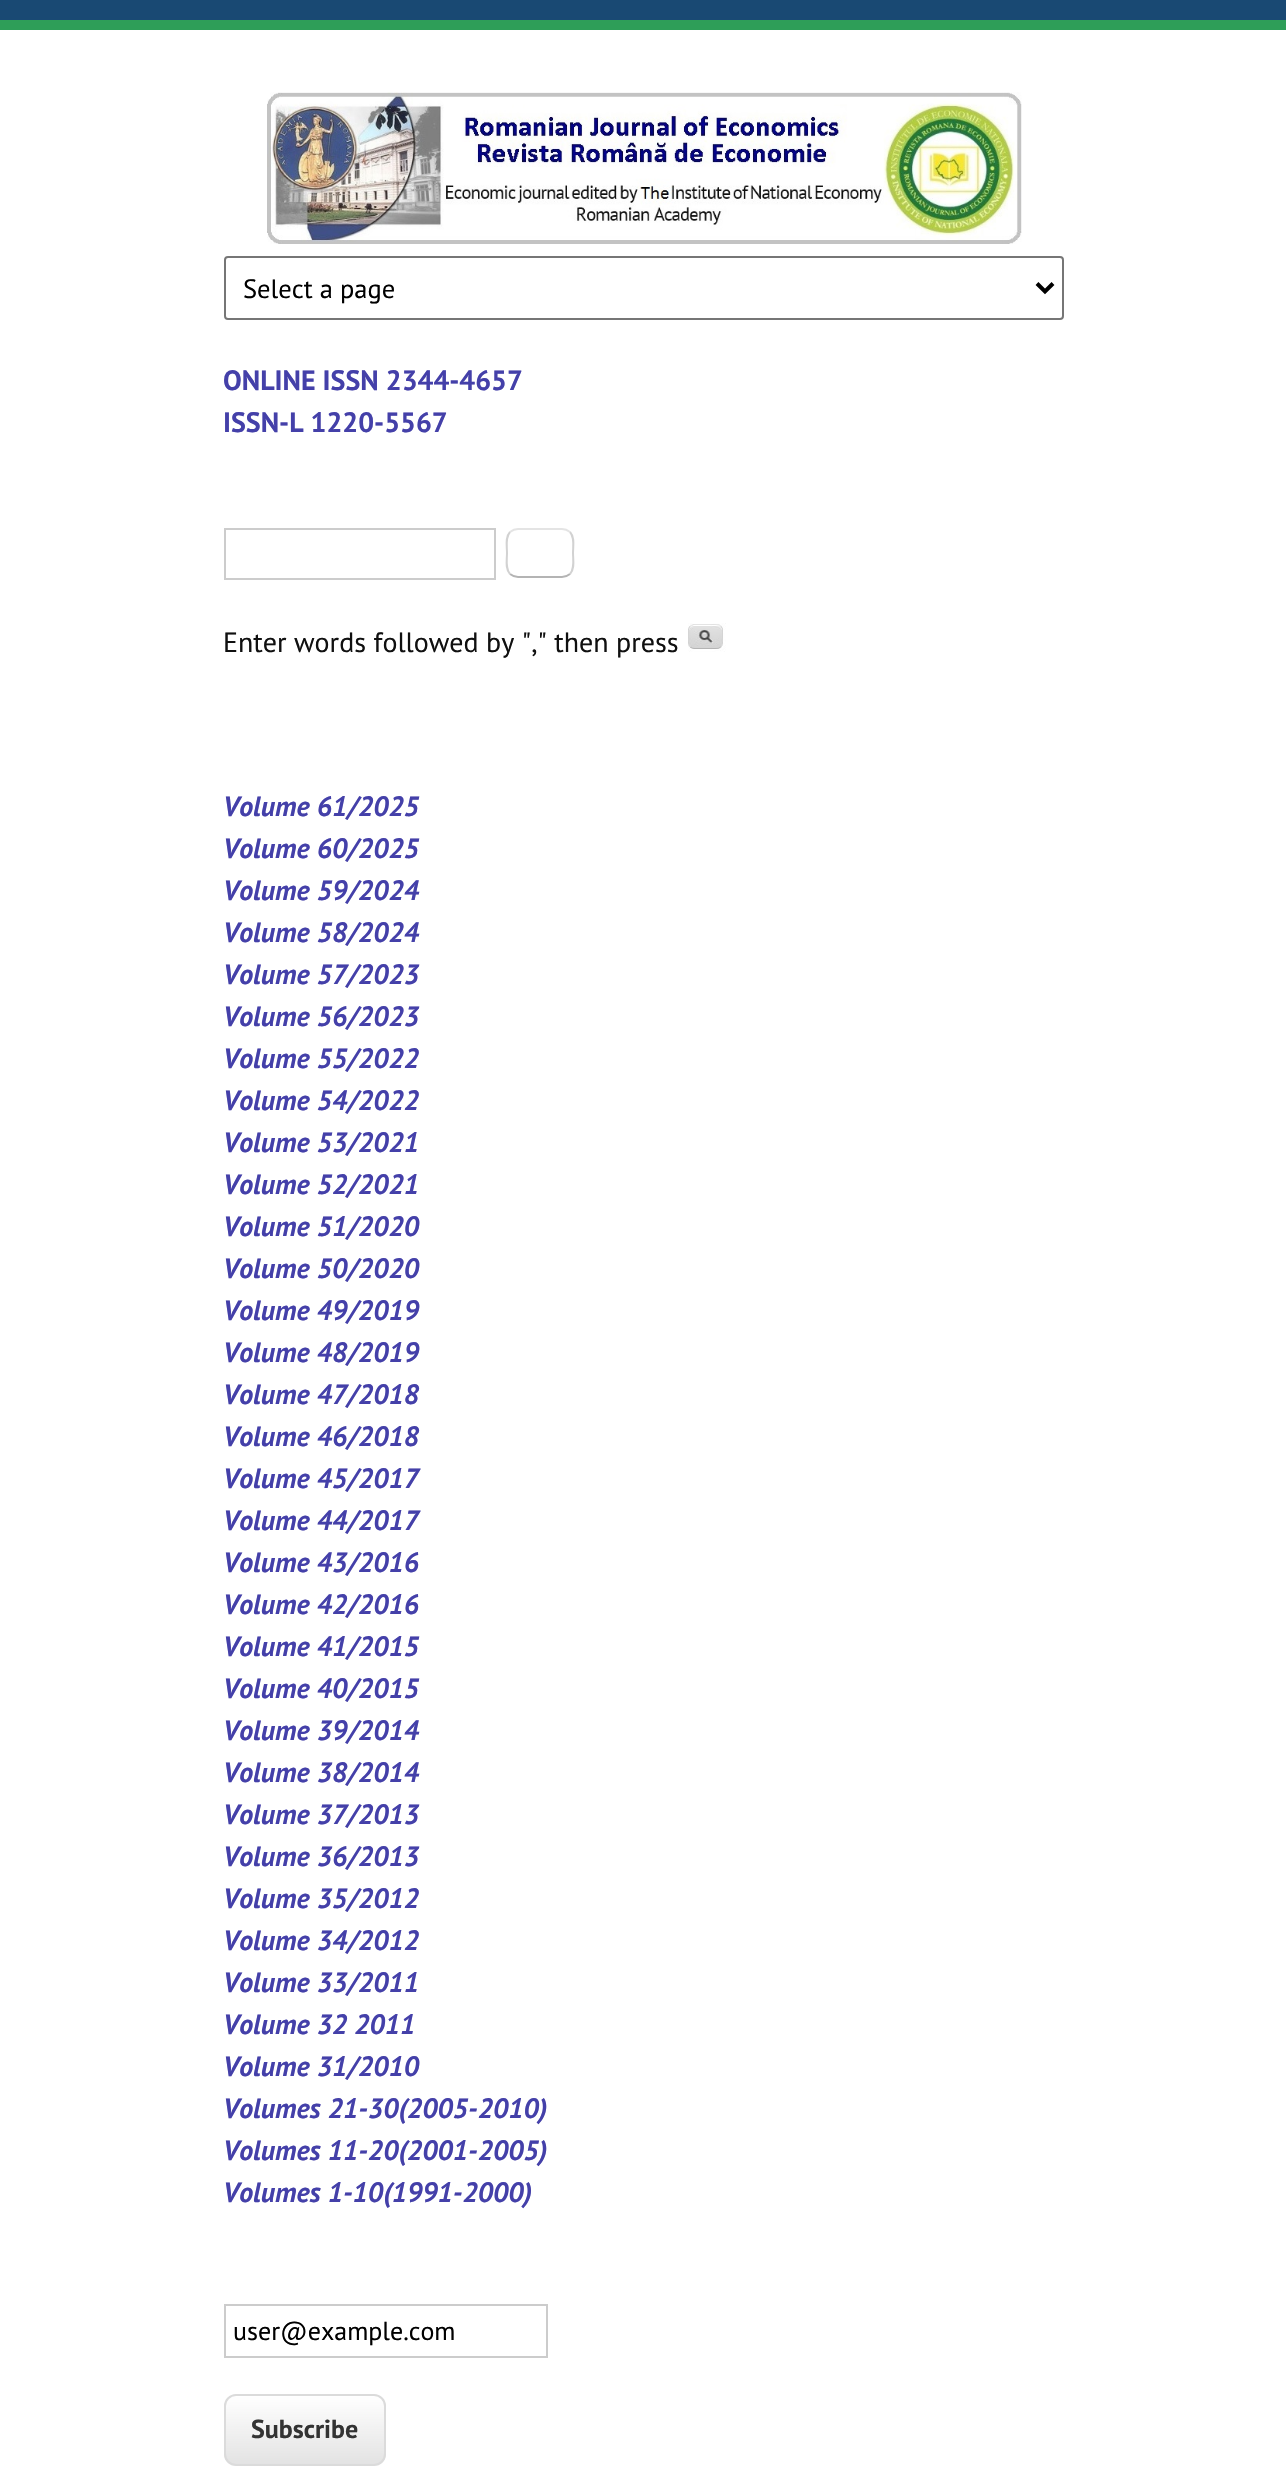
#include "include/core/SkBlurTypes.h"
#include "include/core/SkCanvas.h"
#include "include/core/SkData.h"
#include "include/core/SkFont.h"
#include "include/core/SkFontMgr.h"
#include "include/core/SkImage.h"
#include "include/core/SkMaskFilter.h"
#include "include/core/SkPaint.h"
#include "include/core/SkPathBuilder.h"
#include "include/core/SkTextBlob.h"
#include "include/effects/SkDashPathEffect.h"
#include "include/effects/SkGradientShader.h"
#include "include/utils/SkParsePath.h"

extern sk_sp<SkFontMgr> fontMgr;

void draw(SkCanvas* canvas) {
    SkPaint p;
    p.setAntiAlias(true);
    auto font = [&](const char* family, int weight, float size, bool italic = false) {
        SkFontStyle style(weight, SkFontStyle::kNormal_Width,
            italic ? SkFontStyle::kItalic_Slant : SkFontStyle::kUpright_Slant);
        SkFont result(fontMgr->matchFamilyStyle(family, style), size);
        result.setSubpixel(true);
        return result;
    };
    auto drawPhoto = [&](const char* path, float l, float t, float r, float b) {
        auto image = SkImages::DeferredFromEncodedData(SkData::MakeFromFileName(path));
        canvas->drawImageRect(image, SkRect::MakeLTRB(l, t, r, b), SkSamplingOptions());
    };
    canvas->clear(0xFFFFFFFF);
    p.setColor(0xFF194973);
    canvas->drawRect(SkRect::MakeLTRB(0, 0, 1286, 20), p);
    p.setColor(0xFF2E9E58);
    canvas->drawRect(SkRect::MakeLTRB(0, 20, 1286, 30), p);
    drawPhoto("media/1.png", 267, 92, 1022, 244);
    p.setStyle(SkPaint::kStroke_Style);
    p.setStrokeWidth(2);
    p.setColor(0xFF767676);
    canvas->drawRoundRect(SkRect::MakeLTRB(225, 257, 1063, 319), 3, 3, p);
    p.setStrokeWidth(4);
    p.setColor(0xFF000000);
    canvas->drawPath(SkPathBuilder().moveTo(1037, 283.5f).lineTo(1045, 291.5f).lineTo(1053, 283.5f).detach(), p);
    auto font1 = font("PT Sans", 400, 26.5f);
    p.setStyle(SkPaint::kFill_Style);
    canvas->drawString("Select a page", 243, 298, font1, p);
    auto font2 = font("PT Sans", 700, 28);
    p.setColor(0xFF4440A9);
    canvas->drawString("ONLINE ISSN 2344-4657", 223, 390, font2, p);
    canvas->drawString("ISSN-L 1220-5567", 223, 432, font2, p);
    p.setStyle(SkPaint::kStroke_Style);
    p.setStrokeWidth(2);
    p.setColor(0xFFCCCCCC);
    canvas->drawRect(SkRect::MakeLTRB(225, 529, 495, 579), p);
    p.setColor(0xFFE4E4E4);
    canvas->drawPath(SkPathBuilder().moveTo(510, 532).cubicTo(512.5f, 530, 515, 529, 518, 529).lineTo(562, 529).cubicTo(565, 529, 567.5f, 530, 570, 532).detach(), p);
    p.setColor(0xFFD2D2D2);
    canvas->drawPath(SkPathBuilder().moveTo(570, 532).cubicTo(575, 537.5f, 573, 546.5f, 573, 553).cubicTo(573, 559.5f, 575, 568.5f, 570, 574).detach(), p);
    p.setColor(0xFFB4B4B4);
    canvas->drawPath(SkPathBuilder().moveTo(570, 574).cubicTo(567.5f, 576, 565, 577, 562, 577).lineTo(518, 577).cubicTo(515, 577, 512.5f, 576, 510, 574).detach(), p);
    p.setColor(0xFFD2D2D2);
    canvas->drawPath(SkPathBuilder().moveTo(510, 574).cubicTo(505, 568.5f, 507, 559.5f, 507, 553).cubicTo(507, 546.5f, 505, 537.5f, 510, 532).detach(), p);
    auto font3 = font("PT Sans", 400, 28);
    p.setStyle(SkPaint::kFill_Style);
    p.setColor(0xFF101010);
    canvas->drawString("Enter words followed by \",\" then press", 223, 652, font3, p);
    drawPhoto("media/2.png", 688, 623, 726, 652);
    auto font4 = font("PT Sans", 700, 28, true);
    p.setColor(0xFF4440A9);
    {
        const struct { const char* s; float x, y; } items[] = {
            {"Volume 61/2025", 223, 816},
            {"Volume 60/2025", 223, 858},
            {"Volume 59/2024", 223, 900},
            {"Volume 58/2024", 223, 942},
            {"Volume 57/2023", 223, 984},
            {"Volume 56/2023", 223, 1026},
            {"Volume 55/2022", 223, 1068},
            {"Volume 54/2022", 223, 1110},
            {"Volume 53/2021", 223, 1152},
            {"Volume 52/2021", 223, 1194},
            {"Volume 51/2020", 223, 1236},
            {"Volume 50/2020", 223, 1278},
            {"Volume 49/2019", 223, 1320},
            {"Volume 48/2019", 223, 1362},
            {"Volume 47/2018", 223, 1404},
            {"Volume 46/2018", 223, 1446},
            {"Volume 45/2017", 223, 1488},
            {"Volume 44/2017", 223, 1530},
            {"Volume 43/2016", 223, 1572},
            {"Volume 42/2016", 223, 1614},
            {"Volume 41/2015", 223, 1656},
            {"Volume 40/2015", 223, 1698},
            {"Volume 39/2014", 223, 1740},
            {"Volume 38/2014", 223, 1782},
            {"Volume 37/2013", 223, 1824},
            {"Volume 36/2013", 223, 1866},
            {"Volume 35/2012", 223, 1908},
            {"Volume 34/2012", 223, 1950},
            {"Volume 33/2011", 223, 1992},
            {"Volume 32 2011", 223, 2034},
            {"Volume 31/2010", 223, 2076},
            {"Volumes 21-30(2005-2010)", 223, 2118},
            {"Volumes 11-20(2001-2005)", 223, 2160},
            {"Volumes 1-10(1991-2000)", 223, 2202},
        };
        for (auto [s, x, y] : items) {
            canvas->drawString(s, x, y, font4, p);
        }
    }
    p.setStyle(SkPaint::kStroke_Style);
    p.setColor(0xFFCCCCCC);
    canvas->drawRect(SkRect::MakeLTRB(225, 2305, 547, 2357), p);
    auto font5 = font("PT Sans", 400, 26);
    p.setStyle(SkPaint::kFill_Style);
    p.setColor(0xFF000000);
    canvas->drawString("user@example.com", 233, 2340, font5, p);
    canvas->save();
    canvas->clipPath(SkPathBuilder().moveTo(236, 2394).lineTo(374, 2394).cubicTo(380.5f, 2394, 386, 2399.5f, 386, 2406).lineTo(386, 2454).cubicTo(386, 2460.5f, 380.5f, 2466, 374, 2466).lineTo(236, 2466).cubicTo(229.5f, 2466, 224, 2460.5f, 224, 2454).lineTo(224, 2406).cubicTo(224, 2399.5f, 229.5f, 2394, 236, 2394).close().detach(), true);
    {
        const SkColor colors[] = {0xFFFFFFFF, 0xFFE3E3E3};
        const float stops[] = {0, 1};
        const SkPoint ends[] = {{305, 2396}, {305, 2464}};
        p.setShader(SkGradientShader::MakeLinear(ends, colors, stops, 2, SkTileMode::kClamp));
        p.setAlpha(255);
    }
    canvas->drawRect(SkRect::MakeLTRB(224, 2396, 386, 2464), p);
    canvas->restore();
    p.setStyle(SkPaint::kStroke_Style);
    p.setShader(nullptr);
    p.setColor(0xFFDBDBDB);
    canvas->drawRoundRect(SkRect::MakeLTRB(225, 2395, 385, 2465), 11, 11, p);
    auto font6 = font("PT Sans", 700, 26);
    p.setStyle(SkPaint::kFill_Style);
    p.setColor(0xFF333333);
    canvas->drawString("Subscribe", 251, 2438, font6, p);
}
